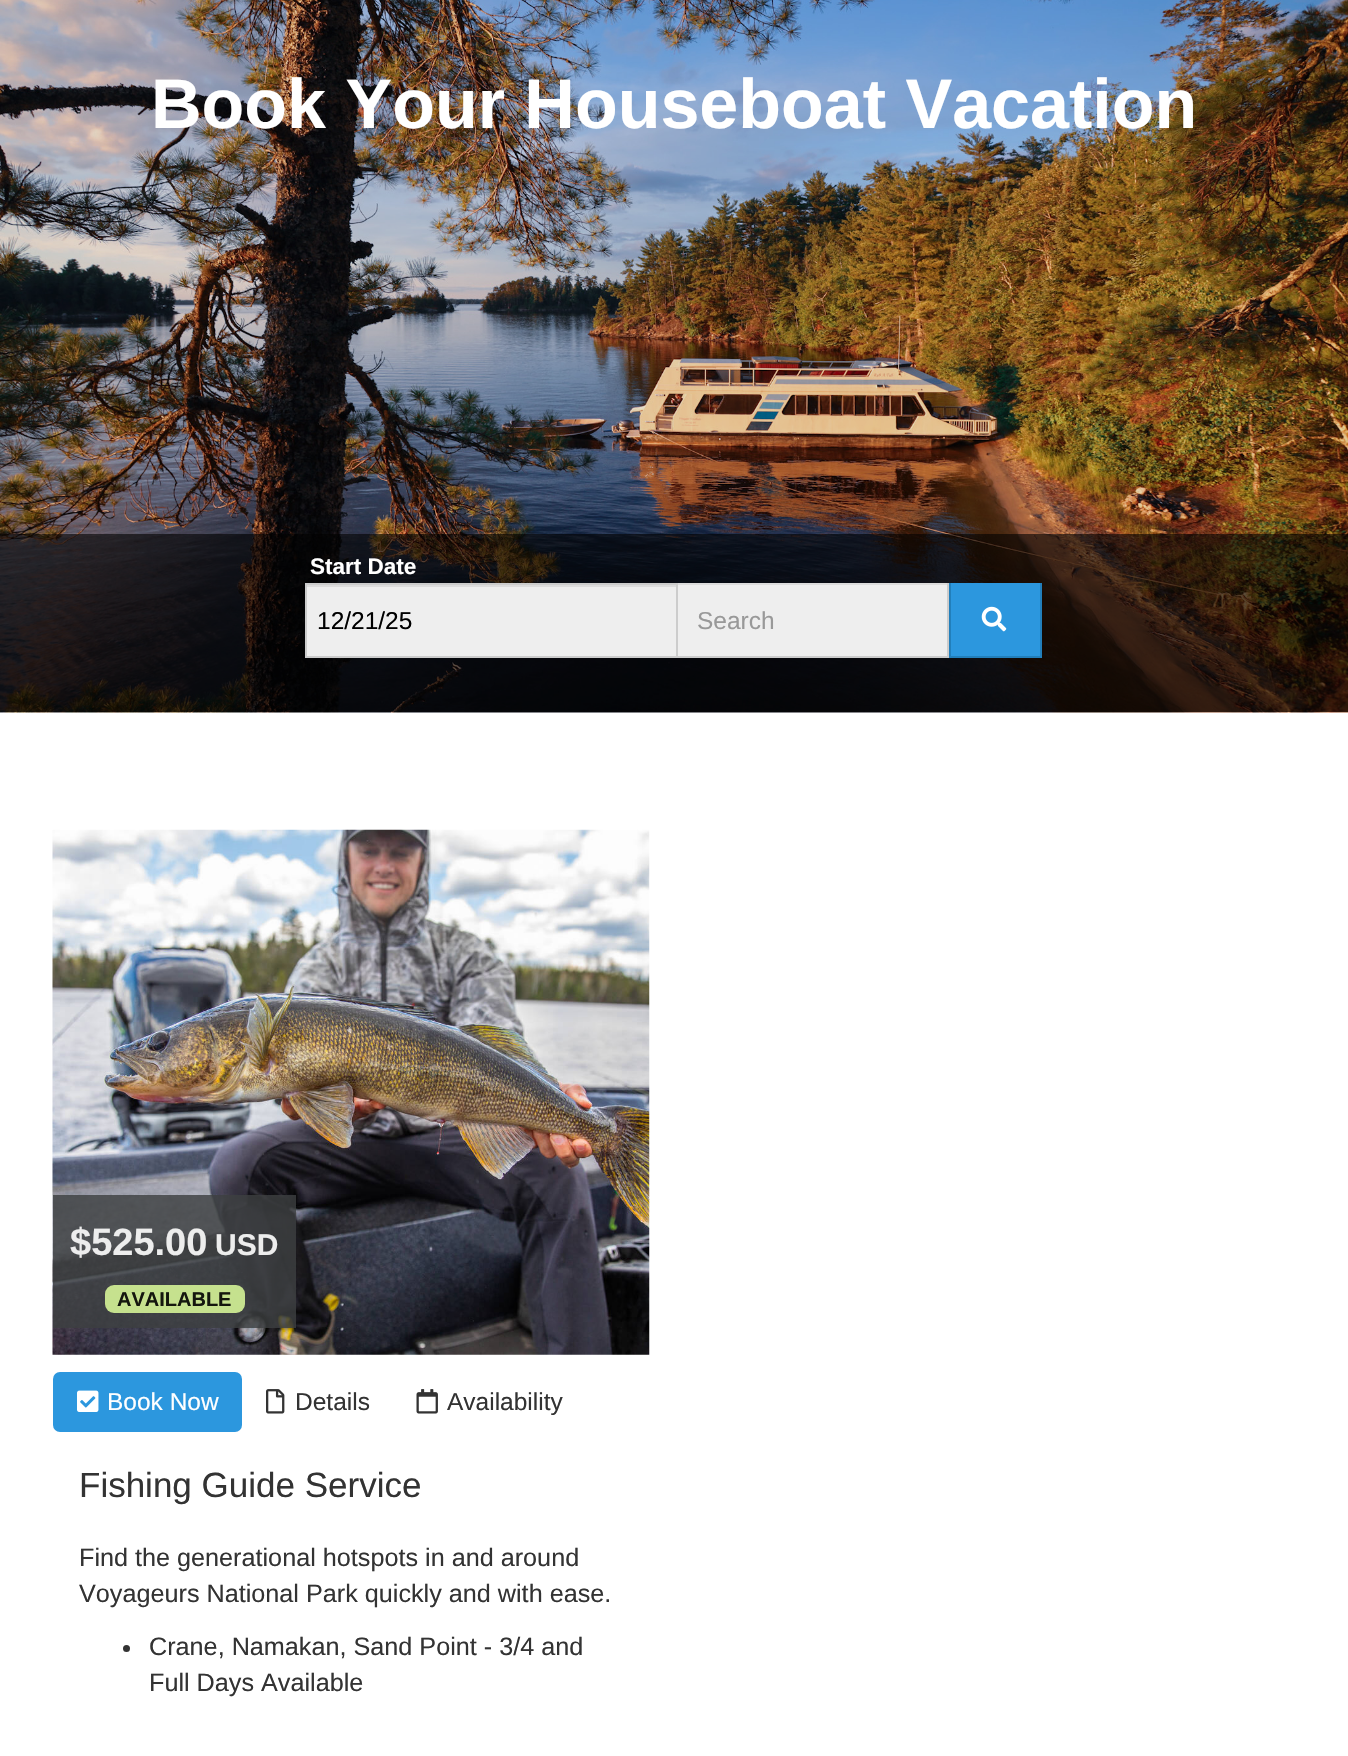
#include "include/core/SkBlurTypes.h"
#include "include/core/SkCanvas.h"
#include "include/core/SkData.h"
#include "include/core/SkFont.h"
#include "include/core/SkFontMgr.h"
#include "include/core/SkImage.h"
#include "include/core/SkMaskFilter.h"
#include "include/core/SkPaint.h"
#include "include/core/SkPathBuilder.h"
#include "include/core/SkTextBlob.h"
#include "include/effects/SkDashPathEffect.h"
#include "include/effects/SkGradientShader.h"
#include "include/utils/SkParsePath.h"

extern sk_sp<SkFontMgr> fontMgr;

void draw(SkCanvas* canvas) {
    SkPaint p;
    p.setAntiAlias(true);
    auto font = [&](const char* family, int weight, float size, bool italic = false) {
        SkFontStyle style(weight, SkFontStyle::kNormal_Width,
            italic ? SkFontStyle::kItalic_Slant : SkFontStyle::kUpright_Slant);
        SkFont result(fontMgr->matchFamilyStyle(family, style), size);
        result.setSubpixel(true);
        return result;
    };
    auto drawPhoto = [&](const char* path, float l, float t, float r, float b) {
        auto image = SkImages::DeferredFromEncodedData(SkData::MakeFromFileName(path));
        canvas->drawImageRect(image, SkRect::MakeLTRB(l, t, r, b), SkSamplingOptions());
    };
    canvas->clear(0xFFFFFFFF);
    drawPhoto("media/1.png", 0, 0, 1348, 713);
    auto font1 = font("Liberation Sans", 700, 70);
    p.setColor(0xFFFFFFFF);
    canvas->drawString("Book Your Houseboat Vacation", 151, 128, font1, p);
    p.setColor(0x99000000);
    canvas->drawRect(SkRect::MakeLTRB(0, 534, 1348, 712), p);
    auto font2 = font("Liberation Sans", 700, 22.5f);
    p.setColor(0xFFFFFFFF);
    canvas->drawString("Start Date", 310, 574, font2, p);
    {
        const struct { float l, t, r, b; SkColor color; } items[] = {
            {307, 587, 676, 656, 0xFFEEEEEE},
            {306, 585, 676, 587, 0xFFDCDCDC},
            {305, 583, 676, 585, 0xFFCCCCCC},
            {305, 656, 676, 658, 0xFFCCCCCC},
            {305, 583, 307, 658, 0xFFCCCCCC},
        };
        for (auto [l, t, r, b, color] : items) {
            p.setColor(color);
            canvas->drawRect(SkRect::MakeLTRB(l, t, r, b), p);
        }
    }
    auto font3 = font("Liberation Sans", 400, 24.5f);
    p.setColor(0xFF000000);
    canvas->drawString("12/21/25", 317, 629, font3, p);
    {
        const struct { float l, t, r, b; SkColor color; } items[] = {
            {678, 585, 947, 656, 0xFFEEEEEE},
            {677, 583, 947, 585, 0xFFDCDCDC},
            {947, 583, 949, 658, 0xFFCCCCCC},
            {676, 656, 949, 658, 0xFFCCCCCC},
            {676, 583, 678, 658, 0xFFCCCCCC},
        };
        for (auto [l, t, r, b, color] : items) {
            p.setColor(color);
            canvas->drawRect(SkRect::MakeLTRB(l, t, r, b), p);
        }
    }
    p.setColor(0xFF999999);
    canvas->drawString("Search", 697, 629, font3, p);
    {
        const struct { float l, t, r, b; SkColor color; } items[] = {
            {951, 583, 1040, 656, 0xFF2C97DE},
            {1040, 583, 1042, 658, 0xFF227FBB},
            {949, 656, 1041, 658, 0xFF227FBB},
            {949, 583, 951, 658, 0xFF227FBB},
        };
        for (auto [l, t, r, b, color] : items) {
            p.setColor(color);
            canvas->drawRect(SkRect::MakeLTRB(l, t, r, b), p);
        }
    }
    drawPhoto("media/2.png", 981, 606, 1007, 632);
    drawPhoto("media/3.png", 52, 829, 650, 1355);
    p.setColor(0xCF3C3F40);
    canvas->drawRect(SkRect::MakeLTRB(53, 1195, 296, 1328), p);
    auto font4 = font("Liberation Sans", 700, 38);
    p.setColor(0xFFEDEDED);
    canvas->drawString("$525.00", 70, 1255, font4, p);
    auto font5 = font("Liberation Sans", 700, 30);
    canvas->drawString("USD", 215, 1255, font5, p);
    p.setColor(0xE6D4F296);
    canvas->drawRoundRect(SkRect::MakeLTRB(105, 1285, 245, 1313), 9, 9, p);
    auto font6 = font("Liberation Sans", 700, 20);
    p.setColor(0xFF14160E);
    canvas->drawString("AVAILABLE", 117, 1306, font6, p);
    p.setColor(0xFF2C97DE);
    canvas->drawRoundRect(SkRect::MakeLTRB(53, 1372, 242, 1432), 7, 7, p);
    drawPhoto("media/4.png", 77, 1390, 99, 1412);
    p.setColor(0xFFFFFFFF);
    canvas->drawString("Book Now", 107, 1410, font3, p);
    drawPhoto("media/5.png", 266, 1389, 285, 1414);
    p.setColor(0xFF333333);
    canvas->drawString("Details", 295, 1410, font3, p);
    drawPhoto("media/6.png", 416, 1389, 438, 1414);
    canvas->drawString("Availability", 447, 1410, font3, p);
    auto font7 = font("Liberation Sans", 400, 35);
    canvas->drawString("Fishing Guide Service", 79, 1497, font7, p);
    auto font8 = font("Liberation Sans", 400, 25.2f);
    canvas->drawString("Find the generational hotspots in and around", 79, 1566, font8, p);
    canvas->drawString("Voyageurs National Park quickly and with ease.", 79, 1602, font8, p);
    canvas->drawCircle(126.5f, 1648.5f, 3.5f, p);
    canvas->drawString("Crane, Namakan, Sand Point - 3/4 and", 149, 1655, font8, p);
    canvas->drawString("Full Days Available", 149, 1691, font8, p);
}
